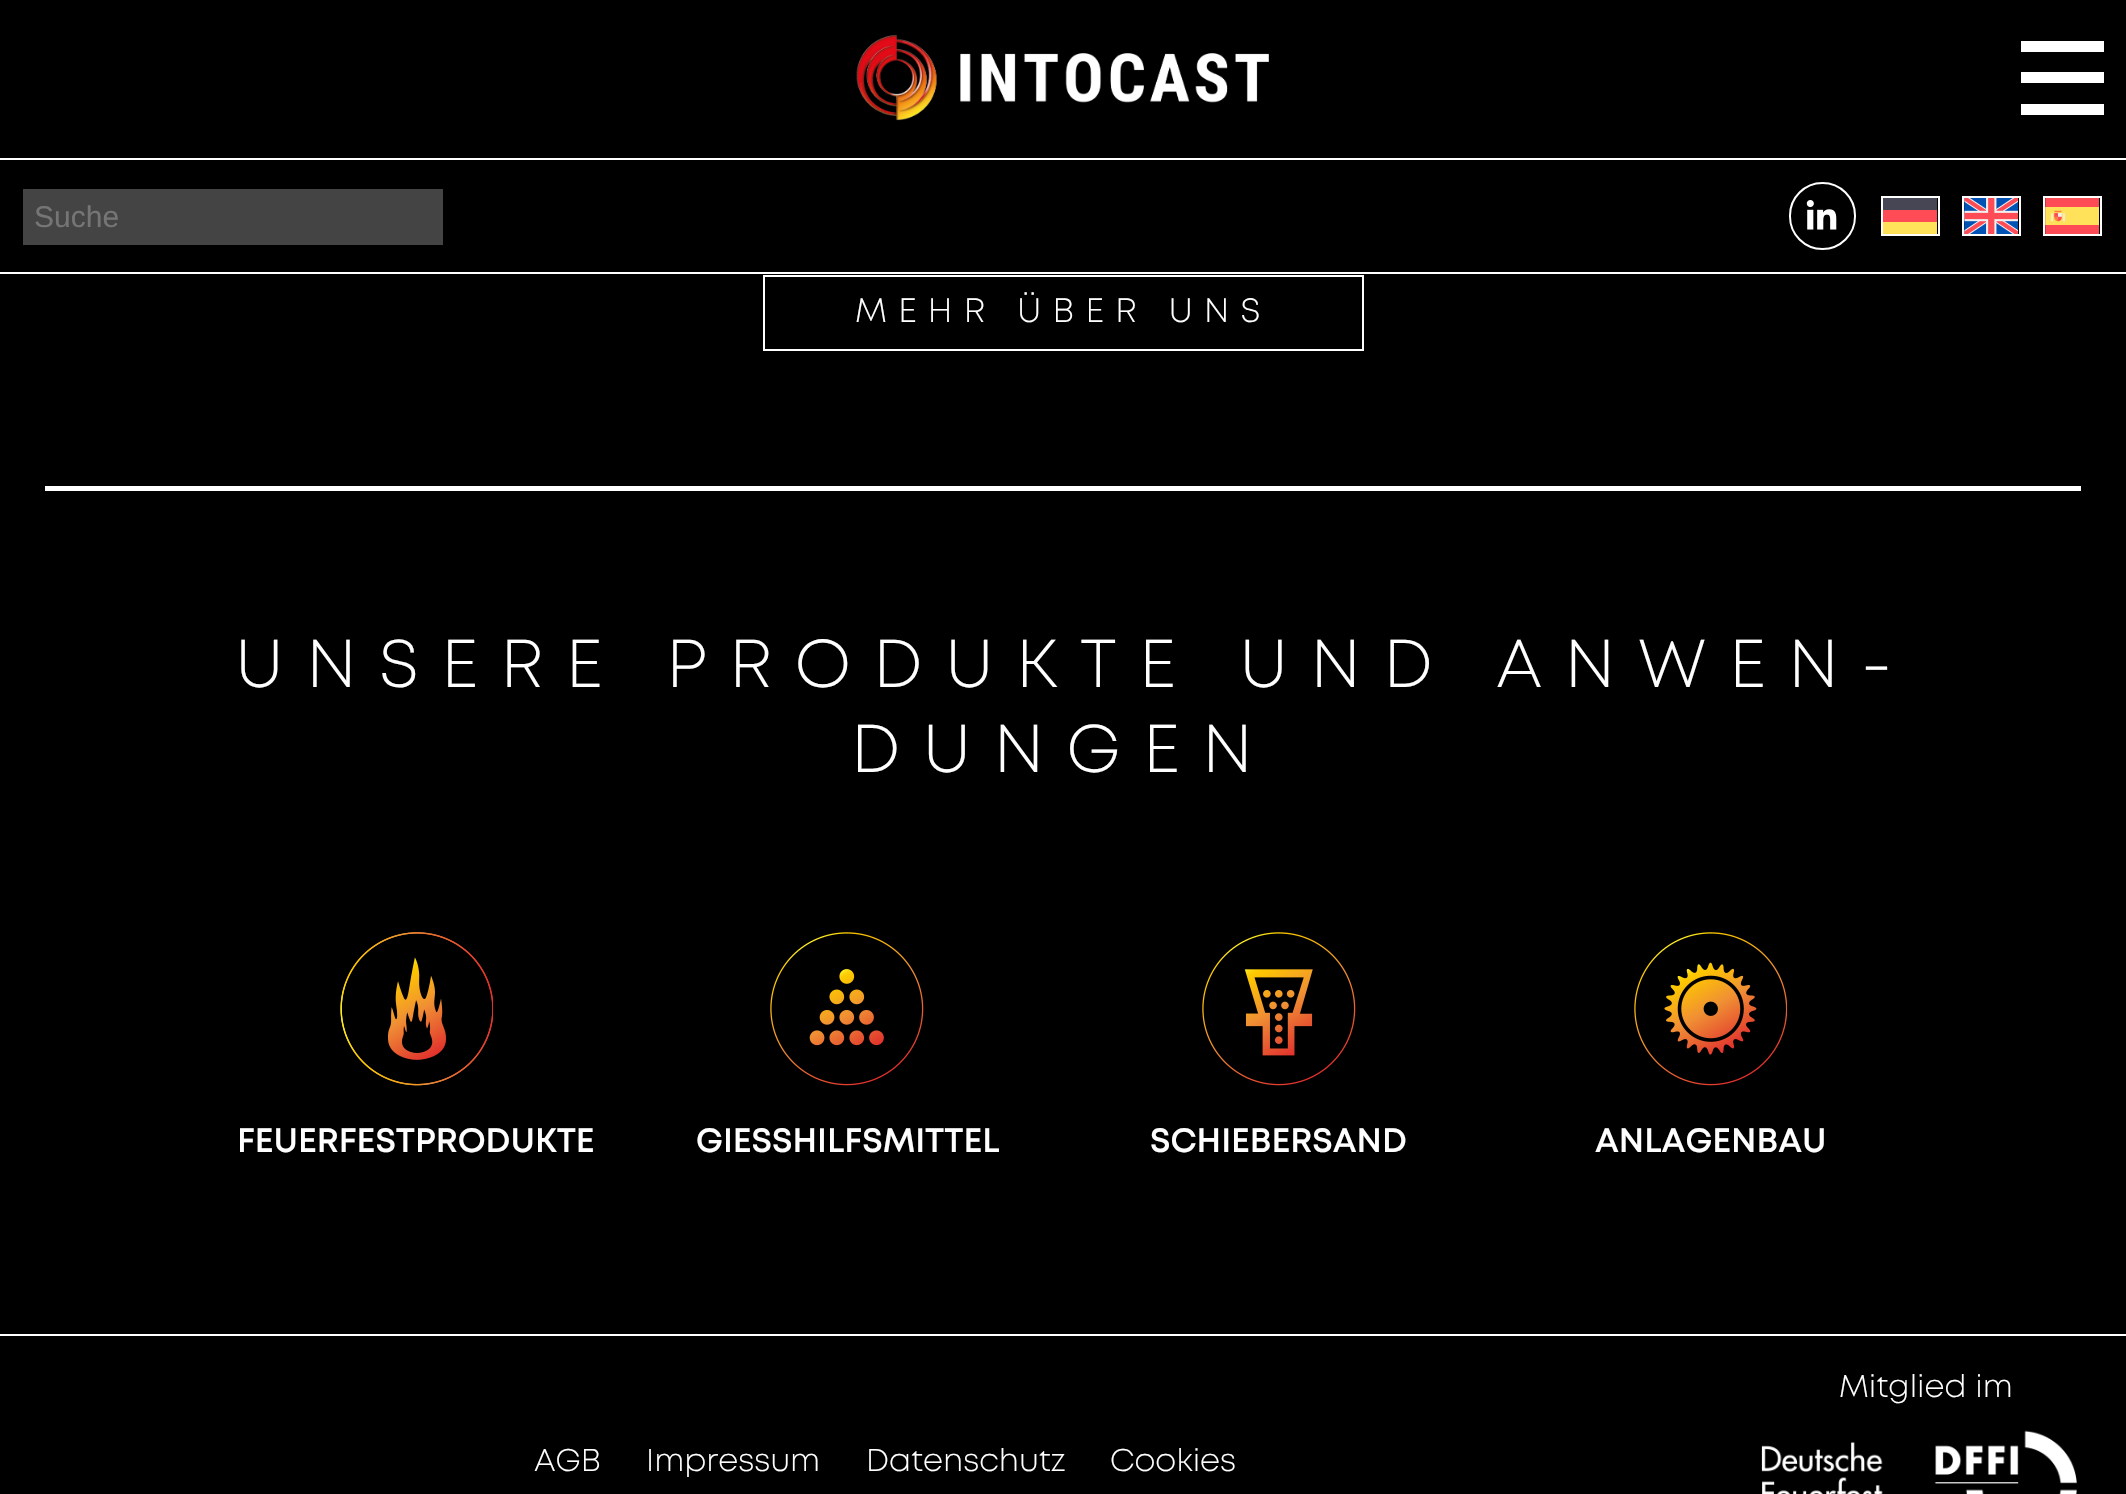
#include "include/core/SkBlurTypes.h"
#include "include/core/SkCanvas.h"
#include "include/core/SkData.h"
#include "include/core/SkFont.h"
#include "include/core/SkFontMgr.h"
#include "include/core/SkImage.h"
#include "include/core/SkMaskFilter.h"
#include "include/core/SkPaint.h"
#include "include/core/SkPathBuilder.h"
#include "include/core/SkTextBlob.h"
#include "include/effects/SkDashPathEffect.h"
#include "include/effects/SkGradientShader.h"
#include "include/utils/SkParsePath.h"

extern sk_sp<SkFontMgr> fontMgr;

void draw(SkCanvas* canvas) {
    SkPaint p;
    p.setAntiAlias(true);
    auto font = [&](const char* family, int weight, float size, bool italic = false) {
        SkFontStyle style(weight, SkFontStyle::kNormal_Width,
            italic ? SkFontStyle::kItalic_Slant : SkFontStyle::kUpright_Slant);
        SkFont result(fontMgr->matchFamilyStyle(family, style), size);
        result.setSubpixel(true);
        return result;
    };
    auto drawTracked = [&](const char* s, float x, float y, const SkFont& font, const SkPaint& ink, float letter, float word) {
        std::vector<SkGlyphID> glyphs(font.countText(s, strlen(s), SkTextEncoding::kUTF8));
        std::vector<float> xs(glyphs.size());
        font.textToGlyphs(s, strlen(s), SkTextEncoding::kUTF8, glyphs);
        font.getXPos(glyphs, xs, x);
        float extra = 0;
        for (size_t i = 0; i < glyphs.size(); i++) {
            xs[i] += extra;
            extra += letter + word * (glyphs[i] == font.unicharToGlyph(' '));
        }
        canvas->drawTextBlob(SkTextBlob::MakeFromPosHGlyphs(glyphs, xs, y, font), 0, 0, ink);
    };
    auto drawPhoto = [&](const char* path, float l, float t, float r, float b) {
        auto image = SkImages::DeferredFromEncodedData(SkData::MakeFromFileName(path));
        canvas->drawImageRect(image, SkRect::MakeLTRB(l, t, r, b), SkSamplingOptions());
    };
    canvas->clear(0xFF000000);
    p.setColor(0xFFFFFFFF);
    canvas->drawRect(SkRect::MakeLTRB(0, 158, 2126, 160), p);
    drawPhoto("media/1.png", 856, 34, 1269, 121);
    {
        const struct { float l, t, r, b; SkColor color; } items[] = {
            {2021, 104, 2104, 115, 0xFFFFFFFF},
            {2021, 41, 2104, 52, 0xFFFFFFFF},
            {2021, 72, 2104, 83, 0xFFFFFFFF},
            {0, 272, 2126, 274, 0xFFFFFFFF},
            {23, 189, 443, 245, 0xFF444444},
        };
        for (auto [l, t, r, b, color] : items) {
            p.setColor(color);
            canvas->drawRect(SkRect::MakeLTRB(l, t, r, b), p);
        }
    }
    auto font1 = font("Liberation Sans", 400, 30);
    p.setColor(0xFF757575);
    canvas->drawString("Suche", 34, 227, font1, p);
    p.setStyle(SkPaint::kStroke_Style);
    p.setStrokeWidth(2);
    p.setColor(0xFFFFFFFF);
    canvas->drawRoundRect(SkRect::MakeLTRB(1790, 183, 1855, 249), 32.5f, 32.5f, p);
    drawPhoto("media/2.png", 1806, 200, 1837, 230);
    canvas->drawRect(SkRect::MakeLTRB(1882, 197, 1939, 235), p);
    p.setStyle(SkPaint::kFill_Style);
    {
        const struct { float l, t, r, b; SkColor color; } items[] = {
            {1883, 210, 1937, 222, 0xFFFF4B55},
            {1883, 222, 1937, 234, 0xFFFFE15A},
            {1883, 198, 1937, 210, 0xFF464655},
        };
        for (auto [l, t, r, b, color] : items) {
            p.setColor(color);
            canvas->drawRect(SkRect::MakeLTRB(l, t, r, b), p);
        }
    }
    p.setStyle(SkPaint::kStroke_Style);
    p.setColor(0xFFFFFFFF);
    canvas->drawRect(SkRect::MakeLTRB(1963, 197, 2020, 235), p);
    drawPhoto("media/3.png", 1964, 198, 2018, 234);
    canvas->drawRect(SkRect::MakeLTRB(2044, 197, 2101, 235), p);
    drawPhoto("media/4.png", 2045, 198, 2099, 234);
    canvas->drawRect(SkRect::MakeLTRB(764, 276, 1363, 350), p);
    auto font2 = font("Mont", 300, 33.75f);
    p.setStyle(SkPaint::kFill_Style);
    drawTracked("MEHR ÜBER UNS", 855, 322, font2, p, 11.25f, 0);
    canvas->drawRect(SkRect::MakeLTRB(45, 486, 2081, 491), p);
    auto font3 = font("Mont", 300, 67.5f);
    drawTracked("UNSERE PRODUKTE UND ANWEN-", 235, 687, font3, p, 22.5f, 0);
    drawTracked("DUNGEN", 851, 772, font3, p, 22.5f, 0);
    drawPhoto("media/5.png", 340, 932, 493, 1086);
    auto font4 = font("Mont", 600, 33.75f);
    canvas->drawString("FEUERFESTPRODUKTE", 237, 1152, font4, p);
    drawPhoto("media/6.png", 770, 932, 924, 1086);
    canvas->drawString("GIESSHILFSMITTEL", 696, 1152, font4, p);
    drawPhoto("media/7.png", 1202, 932, 1356, 1086);
    canvas->drawString("SCHIEBERSAND", 1150, 1152, font4, p);
    drawPhoto("media/8.png", 1634, 932, 1787, 1086);
    canvas->drawString("ANLAGENBAU", 1595, 1152, font4, p);
    canvas->drawRect(SkRect::MakeLTRB(0, 1334, 2126, 1336), p);
    auto font5 = font("Mont", 300, 31.5f);
    canvas->drawString("Mitglied im", 1839, 1397, font5, p);
    drawPhoto("media/9.png", 1761, 1430, 2077, 1494);
    {
        const struct { const char* s; float x, y; } items[] = {
            {"AGB", 534, 1471},
            {"Impressum", 646, 1471},
            {"Datenschutz", 866, 1471},
            {"Cookies", 1110, 1471},
        };
        for (auto [s, x, y] : items) {
            canvas->drawString(s, x, y, font5, p);
        }
    }
}
